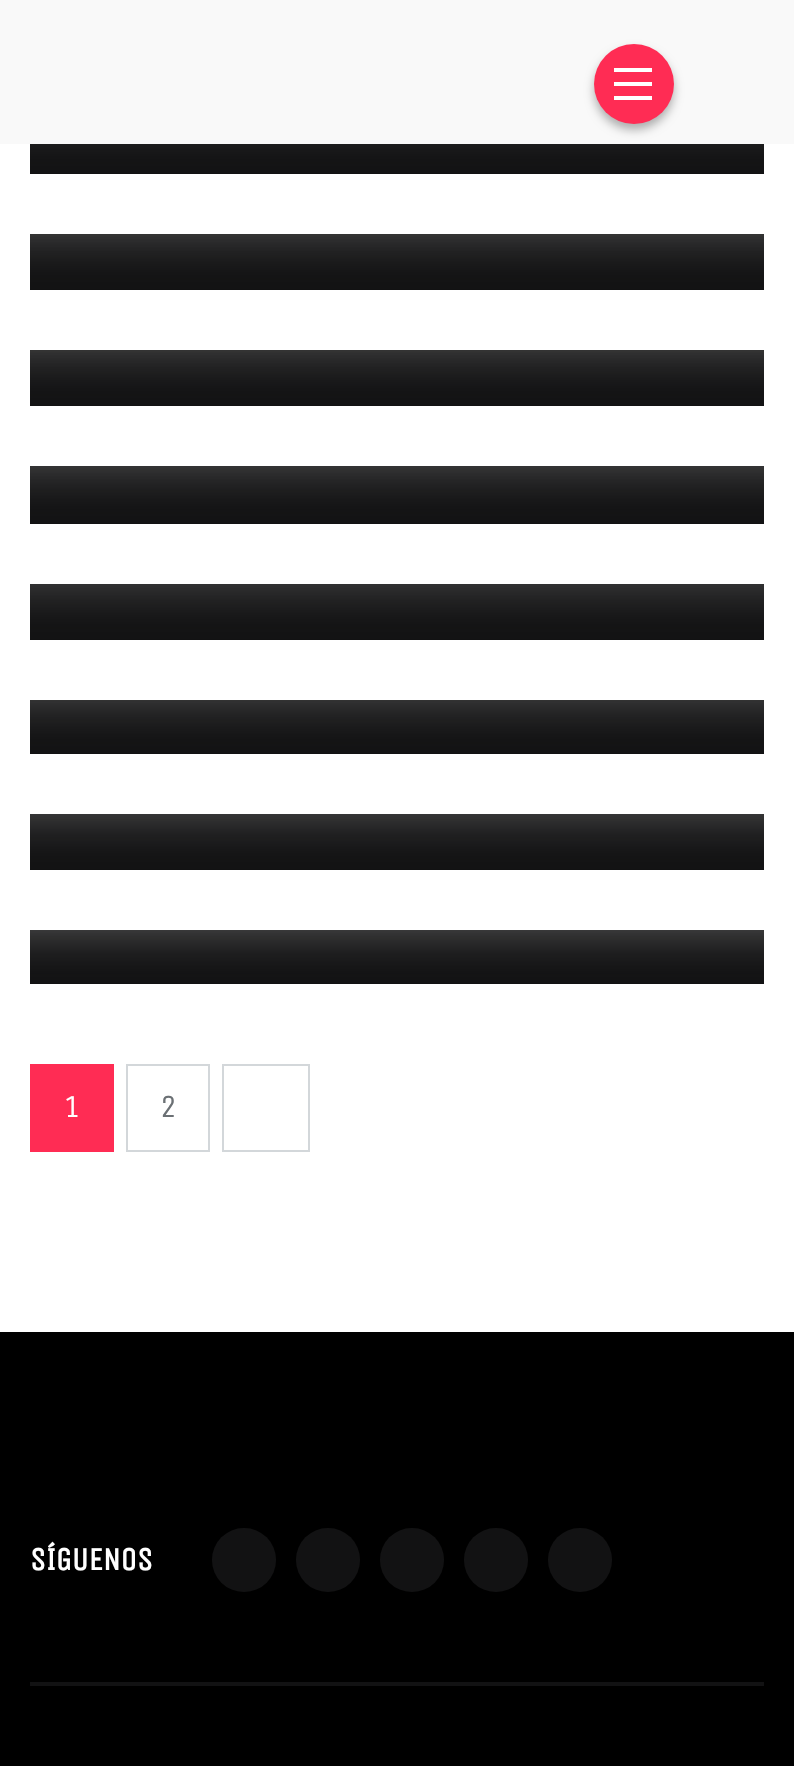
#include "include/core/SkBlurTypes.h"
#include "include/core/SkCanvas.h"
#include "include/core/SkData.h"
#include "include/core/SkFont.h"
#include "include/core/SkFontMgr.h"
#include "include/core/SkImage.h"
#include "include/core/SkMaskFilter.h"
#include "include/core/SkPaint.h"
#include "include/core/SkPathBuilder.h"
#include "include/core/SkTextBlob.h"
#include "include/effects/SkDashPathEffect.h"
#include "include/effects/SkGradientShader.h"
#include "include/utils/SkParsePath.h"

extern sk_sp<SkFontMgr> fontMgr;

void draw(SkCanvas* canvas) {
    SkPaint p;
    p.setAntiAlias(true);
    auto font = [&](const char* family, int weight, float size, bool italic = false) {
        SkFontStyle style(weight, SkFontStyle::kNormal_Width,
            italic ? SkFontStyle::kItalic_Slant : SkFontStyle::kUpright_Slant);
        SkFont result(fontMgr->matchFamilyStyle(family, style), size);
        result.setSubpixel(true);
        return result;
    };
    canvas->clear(0xFFFFFFFF);
    p.setColor(0xFFF9F9F9);
    canvas->drawRect(SkRect::MakeLTRB(0, 0, 794, 144), p);
    {
        const SkColor colors[] = {0xFFFFFFFF, 0xFF121213};
        const float stops[] = {0, 1};
        const SkPoint ends[] = {{397, 116}, {397, 174}};
        p.setShader(SkGradientShader::MakeLinear(ends, colors, stops, 2, SkTileMode::kClamp));
        p.setAlpha(255);
    }
    canvas->drawRect(SkRect::MakeLTRB(30, 144, 764, 172), p);
    {
        const SkColor colors[] = {0x00121213, 0xFF121213};
        const float stops[] = {0, 1};
        const SkPoint ends[] = {{397, -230}, {397, 174}};
        p.setShader(SkGradientShader::MakeLinear(ends, colors, stops, 2, SkTileMode::kClamp));
        p.setAlpha(255);
    }
    canvas->drawRect(SkRect::MakeLTRB(30, 144, 764, 174), p);
    p.setShader(nullptr);
    p.setColor(0x4D000000);
    p.setMaskFilter(SkMaskFilter::MakeBlur(kNormal_SkBlurStyle, 5));
    canvas->drawRoundRect(SkRect::MakeLTRB(594, 50, 674, 130), 40, 40, p);
    p.setMaskFilter(nullptr);
    p.setColor(0xFFFF2C54);
    canvas->drawCircle(634, 84, 40, p);
    {
        const struct { float l, t, r, b; SkColor color; } items[] = {
            {614, 68, 652, 72, 0xFFFFFFFF},
            {614, 82, 652, 86, 0xFFFFFFFF},
            {614, 96, 652, 100, 0xFFFFFFFF},
        };
        for (auto [l, t, r, b, color] : items) {
            p.setColor(color);
            canvas->drawRect(SkRect::MakeLTRB(l, t, r, b), p);
        }
    }
    {
        const SkColor colors[] = {0xFFFFFFFF, 0xFF121213};
        const float stops[] = {0, 1};
        const SkPoint ends[] = {{397, 234}, {397, 290}};
        p.setShader(SkGradientShader::MakeLinear(ends, colors, stops, 2, SkTileMode::kClamp));
        p.setAlpha(255);
    }
    canvas->drawRect(SkRect::MakeLTRB(30, 235, 764, 288), p);
    {
        const SkColor colors[] = {0x00121213, 0xFF121213};
        const float stops[] = {0, 1};
        const SkPoint ends[] = {{397, -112}, {397, 290}};
        p.setShader(SkGradientShader::MakeLinear(ends, colors, stops, 2, SkTileMode::kClamp));
        p.setAlpha(255);
    }
    canvas->drawRect(SkRect::MakeLTRB(30, 234, 764, 290), p);
    {
        const SkColor colors[] = {0xFFFFFFFF, 0xFF121213};
        const float stops[] = {0, 1};
        const SkPoint ends[] = {{397, 350}, {397, 406}};
        p.setShader(SkGradientShader::MakeLinear(ends, colors, stops, 2, SkTileMode::kClamp));
        p.setAlpha(255);
    }
    canvas->drawRect(SkRect::MakeLTRB(30, 351, 764, 404), p);
    {
        const SkColor colors[] = {0x00121213, 0xFF121213};
        const float stops[] = {0, 1};
        const SkPoint ends[] = {{397, 4}, {397, 406}};
        p.setShader(SkGradientShader::MakeLinear(ends, colors, stops, 2, SkTileMode::kClamp));
        p.setAlpha(255);
    }
    canvas->drawRect(SkRect::MakeLTRB(30, 350, 764, 406), p);
    {
        const SkColor colors[] = {0xFFFFFFFF, 0xFF121213};
        const float stops[] = {0, 1};
        const SkPoint ends[] = {{397, 466}, {397, 524}};
        p.setShader(SkGradientShader::MakeLinear(ends, colors, stops, 2, SkTileMode::kClamp));
        p.setAlpha(255);
    }
    canvas->drawRect(SkRect::MakeLTRB(30, 467, 764, 522), p);
    {
        const SkColor colors[] = {0x00121213, 0xFF121213};
        const float stops[] = {0, 1};
        const SkPoint ends[] = {{397, 120}, {397, 524}};
        p.setShader(SkGradientShader::MakeLinear(ends, colors, stops, 2, SkTileMode::kClamp));
        p.setAlpha(255);
    }
    canvas->drawRect(SkRect::MakeLTRB(30, 466, 764, 524), p);
    {
        const SkColor colors[] = {0xFFFFFFFF, 0xFF121213};
        const float stops[] = {0, 1};
        const SkPoint ends[] = {{397, 584}, {397, 640}};
        p.setShader(SkGradientShader::MakeLinear(ends, colors, stops, 2, SkTileMode::kClamp));
        p.setAlpha(255);
    }
    canvas->drawRect(SkRect::MakeLTRB(30, 585, 764, 637), p);
    {
        const SkColor colors[] = {0x00121213, 0xFF121213};
        const float stops[] = {0, 1};
        const SkPoint ends[] = {{397, 204}, {397, 640}};
        p.setShader(SkGradientShader::MakeLinear(ends, colors, stops, 2, SkTileMode::kClamp));
        p.setAlpha(255);
    }
    canvas->drawRect(SkRect::MakeLTRB(30, 584, 764, 640), p);
    {
        const SkColor colors[] = {0xFFFFFFFF, 0xFF121213};
        const float stops[] = {0, 1};
        const SkPoint ends[] = {{397, 700}, {397, 754}};
        p.setShader(SkGradientShader::MakeLinear(ends, colors, stops, 2, SkTileMode::kClamp));
        p.setAlpha(255);
    }
    canvas->drawRect(SkRect::MakeLTRB(30, 701, 764, 752), p);
    {
        const SkColor colors[] = {0x00121213, 0xFF121213};
        const float stops[] = {0, 1};
        const SkPoint ends[] = {{397, 352}, {397, 754}};
        p.setShader(SkGradientShader::MakeLinear(ends, colors, stops, 2, SkTileMode::kClamp));
        p.setAlpha(255);
    }
    canvas->drawRect(SkRect::MakeLTRB(30, 700, 764, 754), p);
    {
        const SkColor colors[] = {0xFFFFFFFF, 0xFF121213};
        const float stops[] = {0, 1};
        const SkPoint ends[] = {{397, 814}, {397, 870}};
        p.setShader(SkGradientShader::MakeLinear(ends, colors, stops, 2, SkTileMode::kClamp));
        p.setAlpha(255);
    }
    canvas->drawRect(SkRect::MakeLTRB(30, 815, 764, 868), p);
    {
        const SkColor colors[] = {0x00121213, 0xFF121213};
        const float stops[] = {0, 1};
        const SkPoint ends[] = {{397, 494}, {397, 870}};
        p.setShader(SkGradientShader::MakeLinear(ends, colors, stops, 2, SkTileMode::kClamp));
        p.setAlpha(255);
    }
    canvas->drawRect(SkRect::MakeLTRB(30, 814, 764, 870), p);
    {
        const SkColor colors[] = {0xFFFFFFFF, 0xFF121213};
        const float stops[] = {0, 1};
        const SkPoint ends[] = {{397, 930}, {397, 984}};
        p.setShader(SkGradientShader::MakeLinear(ends, colors, stops, 2, SkTileMode::kClamp));
        p.setAlpha(255);
    }
    canvas->drawRect(SkRect::MakeLTRB(30, 931, 764, 982), p);
    {
        const SkColor colors[] = {0x00121213, 0xFF121213};
        const float stops[] = {0, 1};
        const SkPoint ends[] = {{397, 648}, {397, 984}};
        p.setShader(SkGradientShader::MakeLinear(ends, colors, stops, 2, SkTileMode::kClamp));
        p.setAlpha(255);
    }
    canvas->drawRect(SkRect::MakeLTRB(30, 930, 764, 984), p);
    p.setShader(nullptr);
    p.setColor(0xFFFF2C54);
    canvas->drawRect(SkRect::MakeLTRB(30, 1064, 114, 1152), p);
    auto font1 = font("Unica One", 400, 32);
    p.setColor(0xFFFFFFFF);
    canvas->drawString("1", 64, 1117, font1, p);
    p.setStyle(SkPaint::kStroke_Style);
    p.setStrokeWidth(2);
    p.setColor(0xFFD3D7DA);
    canvas->drawRect(SkRect::MakeLTRB(127, 1065, 209, 1151), p);
    p.setStyle(SkPaint::kFill_Style);
    p.setColor(0xFF6B7074);
    canvas->drawString("2", 160, 1117, font1, p);
    p.setStyle(SkPaint::kStroke_Style);
    p.setColor(0xFFD3D7DA);
    canvas->drawRect(SkRect::MakeLTRB(223, 1065, 309, 1151), p);
    p.setStyle(SkPaint::kFill_Style);
    p.setColor(0xFF000000);
    canvas->drawRect(SkRect::MakeLTRB(0, 1332, 794, 1766), p);
    auto font2 = font("Unica One", 700, 32);
    p.setColor(0xFFFFFFFF);
    canvas->drawString("SÍGUENOS", 30, 1570, font2, p);
    p.setColor(0xFF121213);
    canvas->drawCircle(244, 1560, 32, p);
    canvas->drawCircle(328, 1560, 32, p);
    canvas->drawCircle(412, 1560, 32, p);
    canvas->drawCircle(496, 1560, 32, p);
    canvas->drawCircle(580, 1560, 32, p);
    canvas->drawRect(SkRect::MakeLTRB(30, 1682, 764, 1686), p);
}
